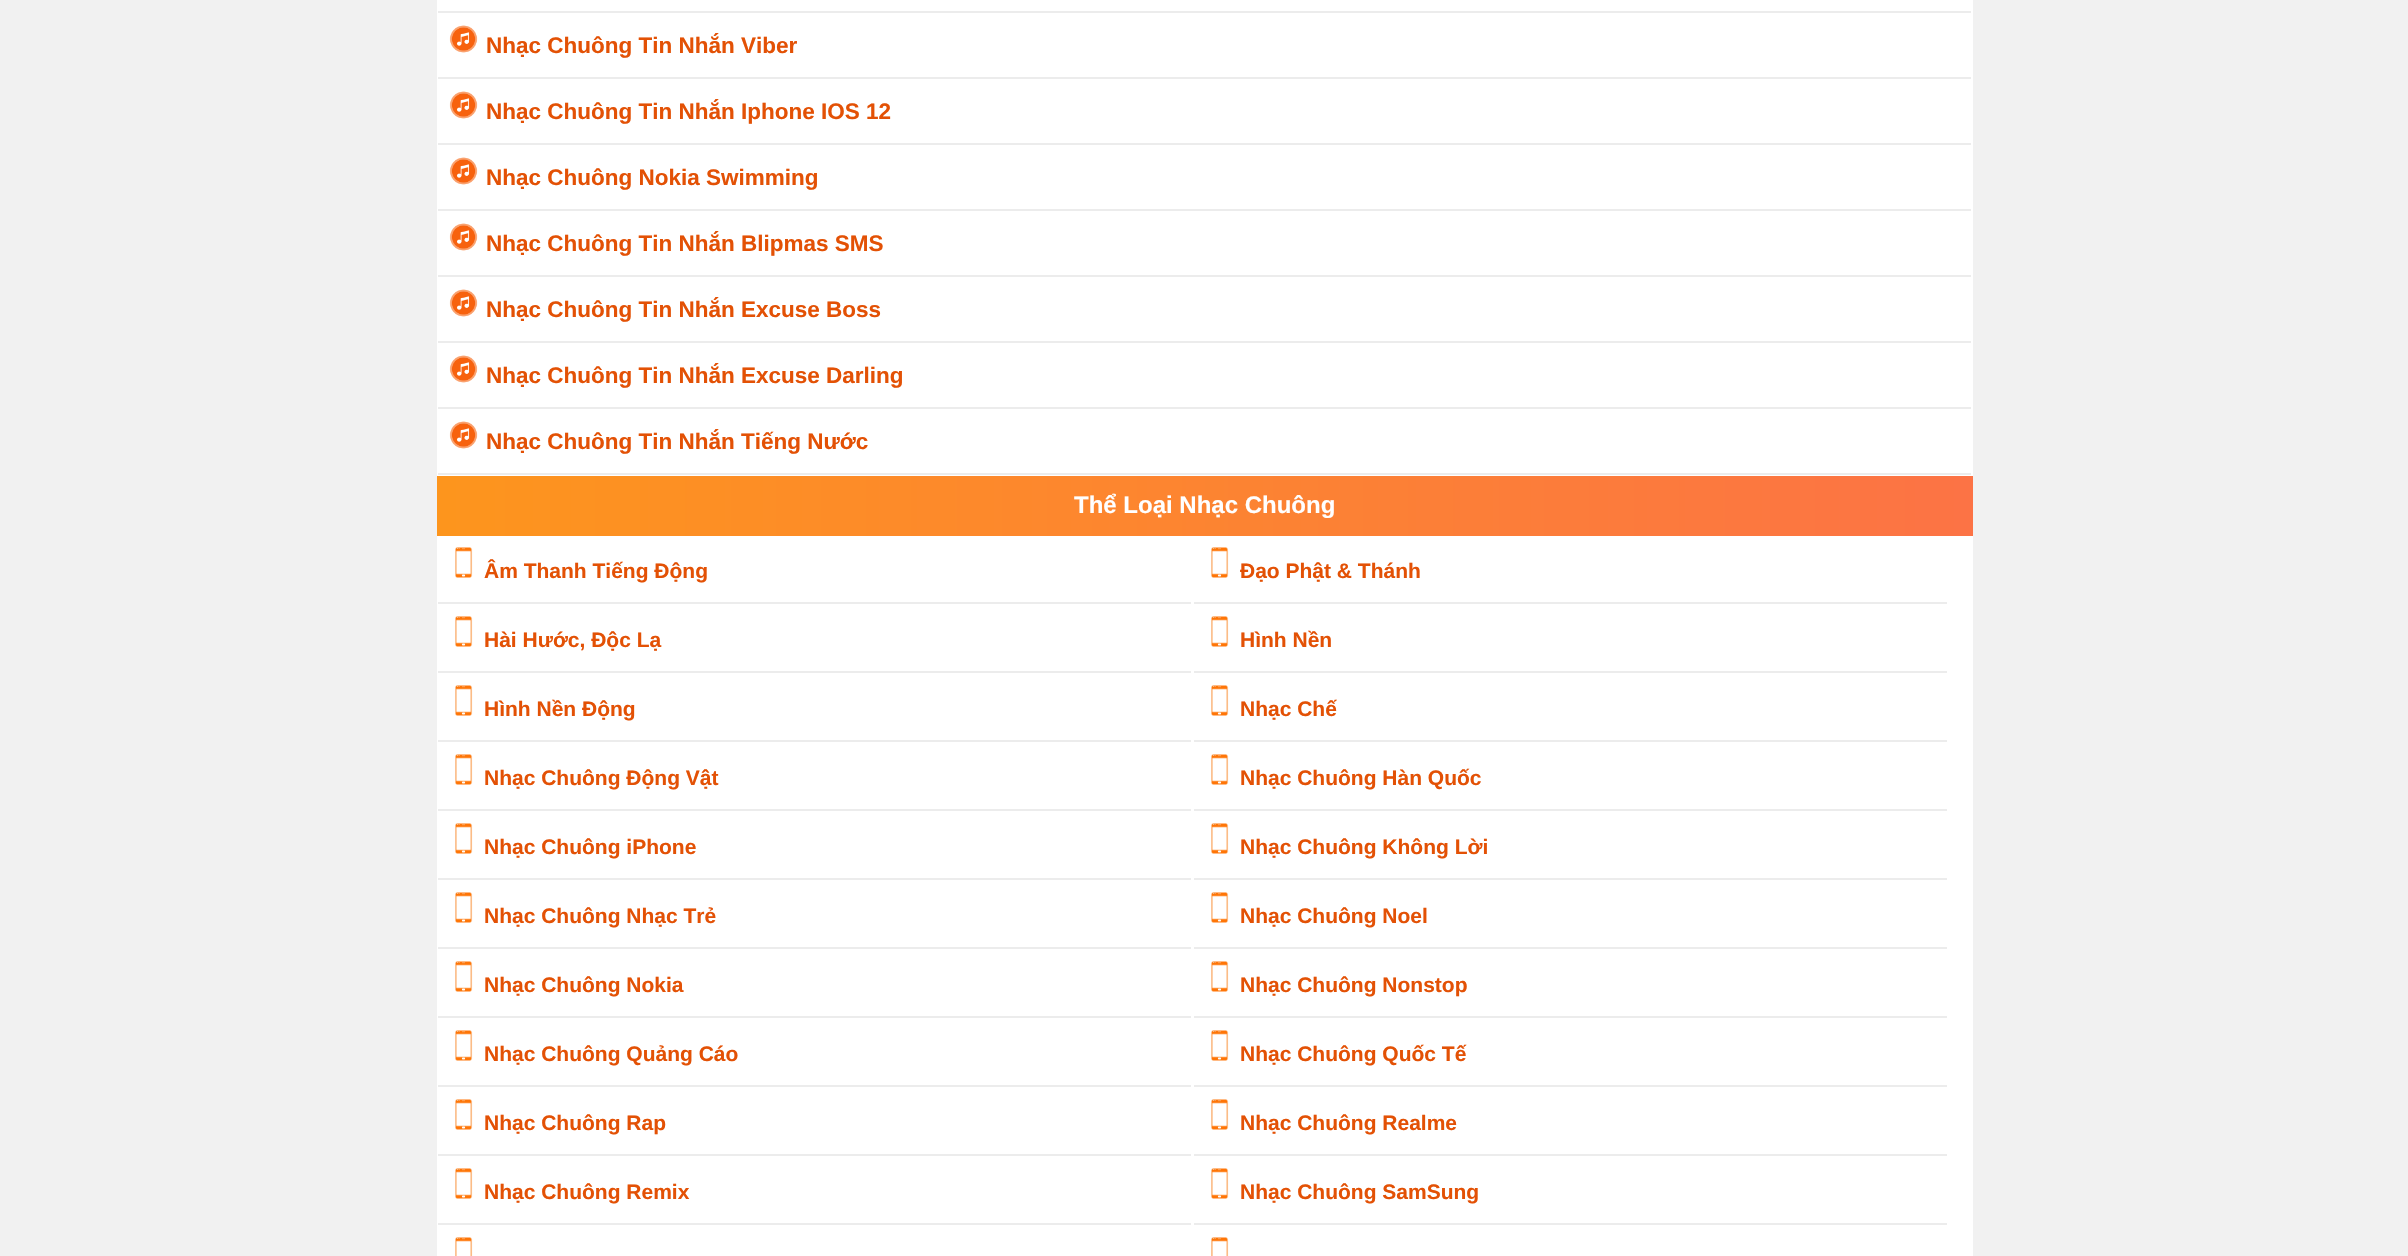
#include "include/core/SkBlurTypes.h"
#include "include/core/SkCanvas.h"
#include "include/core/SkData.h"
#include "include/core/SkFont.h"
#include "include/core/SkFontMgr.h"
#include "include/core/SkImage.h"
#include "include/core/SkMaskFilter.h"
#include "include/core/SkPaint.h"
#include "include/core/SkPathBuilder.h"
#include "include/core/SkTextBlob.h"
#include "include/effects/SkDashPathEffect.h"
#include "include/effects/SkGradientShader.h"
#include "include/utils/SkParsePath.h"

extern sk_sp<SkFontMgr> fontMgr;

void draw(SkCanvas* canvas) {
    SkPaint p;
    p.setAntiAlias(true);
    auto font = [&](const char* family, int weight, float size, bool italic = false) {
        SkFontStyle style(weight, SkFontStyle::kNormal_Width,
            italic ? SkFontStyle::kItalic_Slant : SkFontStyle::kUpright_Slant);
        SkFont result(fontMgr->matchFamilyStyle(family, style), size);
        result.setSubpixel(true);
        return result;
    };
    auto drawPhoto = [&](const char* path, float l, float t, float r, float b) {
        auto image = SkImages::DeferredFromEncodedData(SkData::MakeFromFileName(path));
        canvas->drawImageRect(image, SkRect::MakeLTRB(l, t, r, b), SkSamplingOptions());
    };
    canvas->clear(0xFFF1F1F1);
    {
        const struct { float l, t, r, b; SkColor color; } items[] = {
            {437, 0, 1973, 1256, 0xFFFFFFFF},
            {438, 11, 1971, 13, 0xFFECECEC},
            {438, 77, 1971, 79, 0xFFECECEC},
        };
        for (auto [l, t, r, b, color] : items) {
            p.setColor(color);
            canvas->drawRect(SkRect::MakeLTRB(l, t, r, b), p);
        }
    }
    drawPhoto("media/1.png", 449, 25, 478, 53);
    auto font1 = font("Liberation Sans", 700, 22.5f);
    p.setColor(0xFFE35105);
    canvas->drawString("Nhạc Chuông Tin Nhắn Viber", 486, 53, font1, p);
    p.setColor(0xFFECECEC);
    canvas->drawRect(SkRect::MakeLTRB(438, 143, 1971, 145), p);
    drawPhoto("media/1.png", 449, 91, 478, 119);
    p.setColor(0xFFE35105);
    canvas->drawString("Nhạc Chuông Tin Nhắn Iphone IOS 12", 486, 119, font1, p);
    p.setColor(0xFFECECEC);
    canvas->drawRect(SkRect::MakeLTRB(438, 209, 1971, 211), p);
    drawPhoto("media/1.png", 449, 157, 478, 185);
    p.setColor(0xFFE35105);
    canvas->drawString("Nhạc Chuông Nokia Swimming", 486, 185, font1, p);
    p.setColor(0xFFECECEC);
    canvas->drawRect(SkRect::MakeLTRB(438, 275, 1971, 277), p);
    drawPhoto("media/1.png", 449, 223, 478, 251);
    p.setColor(0xFFE35105);
    canvas->drawString("Nhạc Chuông Tin Nhắn Blipmas SMS", 486, 251, font1, p);
    p.setColor(0xFFECECEC);
    canvas->drawRect(SkRect::MakeLTRB(438, 341, 1971, 343), p);
    drawPhoto("media/1.png", 449, 289, 478, 317);
    p.setColor(0xFFE35105);
    canvas->drawString("Nhạc Chuông Tin Nhắn Excuse Boss", 486, 317, font1, p);
    p.setColor(0xFFECECEC);
    canvas->drawRect(SkRect::MakeLTRB(438, 407, 1971, 409), p);
    drawPhoto("media/1.png", 449, 355, 478, 383);
    p.setColor(0xFFE35105);
    canvas->drawString("Nhạc Chuông Tin Nhắn Excuse Darling", 486, 383, font1, p);
    p.setColor(0xFFECECEC);
    canvas->drawRect(SkRect::MakeLTRB(438, 473, 1971, 475), p);
    drawPhoto("media/1.png", 449, 421, 478, 449);
    p.setColor(0xFFE35105);
    canvas->drawString("Nhạc Chuông Tin Nhắn Tiếng Nước", 486, 449, font1, p);
    {
        const SkColor colors[] = {0xFFFD951D, 0xFFFC7345};
        const float stops[] = {0, 1};
        const SkPoint ends[] = {{437, 506}, {1973, 505}};
        p.setShader(SkGradientShader::MakeLinear(ends, colors, stops, 2, SkTileMode::kClamp));
        p.setAlpha(255);
    }
    canvas->drawRect(SkRect::MakeLTRB(437, 476, 1973, 536), p);
    auto font2 = font("Liberation Sans", 700, 24);
    p.setShader(nullptr);
    p.setColor(0xFFFFFFFF);
    canvas->drawString("Thể Loại Nhạc Chuông", 1074, 513, font2, p);
    p.setColor(0xFFECECEC);
    canvas->drawRect(SkRect::MakeLTRB(438, 602, 1191, 604), p);
    drawPhoto("media/2.png", 455, 547, 473, 578);
    auto font3 = font("Liberation Sans", 700, 21);
    p.setColor(0xFFE35105);
    canvas->drawString("Âm Thanh Tiếng Động", 484, 578, font3, p);
    p.setColor(0xFFECECEC);
    canvas->drawRect(SkRect::MakeLTRB(1194, 602, 1947, 604), p);
    drawPhoto("media/2.png", 1211, 547, 1229, 578);
    p.setColor(0xFFE35105);
    canvas->drawString("Đạo Phật & Thánh", 1240, 578, font3, p);
    p.setColor(0xFFECECEC);
    canvas->drawRect(SkRect::MakeLTRB(438, 671, 1191, 673), p);
    drawPhoto("media/2.png", 455, 616, 473, 647);
    p.setColor(0xFFE35105);
    canvas->drawString("Hài Hước, Độc Lạ", 484, 647, font3, p);
    p.setColor(0xFFECECEC);
    canvas->drawRect(SkRect::MakeLTRB(1194, 671, 1947, 673), p);
    drawPhoto("media/2.png", 1211, 616, 1229, 647);
    p.setColor(0xFFE35105);
    canvas->drawString("Hình Nền", 1240, 647, font3, p);
    p.setColor(0xFFECECEC);
    canvas->drawRect(SkRect::MakeLTRB(438, 740, 1191, 742), p);
    drawPhoto("media/2.png", 455, 685, 473, 716);
    p.setColor(0xFFE35105);
    canvas->drawString("Hình Nền Động", 484, 716, font3, p);
    p.setColor(0xFFECECEC);
    canvas->drawRect(SkRect::MakeLTRB(1194, 740, 1947, 742), p);
    drawPhoto("media/2.png", 1211, 685, 1229, 716);
    p.setColor(0xFFE35105);
    canvas->drawString("Nhạc Chế", 1240, 716, font3, p);
    p.setColor(0xFFECECEC);
    canvas->drawRect(SkRect::MakeLTRB(438, 809, 1191, 811), p);
    drawPhoto("media/2.png", 455, 754, 473, 785);
    p.setColor(0xFFE35105);
    canvas->drawString("Nhạc Chuông Động Vật", 484, 785, font3, p);
    p.setColor(0xFFECECEC);
    canvas->drawRect(SkRect::MakeLTRB(1194, 809, 1947, 811), p);
    drawPhoto("media/2.png", 1211, 754, 1229, 785);
    p.setColor(0xFFE35105);
    canvas->drawString("Nhạc Chuông Hàn Quốc", 1240, 785, font3, p);
    p.setColor(0xFFECECEC);
    canvas->drawRect(SkRect::MakeLTRB(438, 878, 1191, 880), p);
    drawPhoto("media/2.png", 455, 823, 473, 854);
    p.setColor(0xFFE35105);
    canvas->drawString("Nhạc Chuông iPhone", 484, 854, font3, p);
    p.setColor(0xFFECECEC);
    canvas->drawRect(SkRect::MakeLTRB(1194, 878, 1947, 880), p);
    drawPhoto("media/2.png", 1211, 823, 1229, 854);
    p.setColor(0xFFE35105);
    canvas->drawString("Nhạc Chuông Không Lời", 1240, 854, font3, p);
    p.setColor(0xFFECECEC);
    canvas->drawRect(SkRect::MakeLTRB(438, 947, 1191, 949), p);
    drawPhoto("media/2.png", 455, 892, 473, 923);
    p.setColor(0xFFE35105);
    canvas->drawString("Nhạc Chuông Nhạc Trẻ", 484, 923, font3, p);
    p.setColor(0xFFECECEC);
    canvas->drawRect(SkRect::MakeLTRB(1194, 947, 1947, 949), p);
    drawPhoto("media/2.png", 1211, 892, 1229, 923);
    p.setColor(0xFFE35105);
    canvas->drawString("Nhạc Chuông Noel", 1240, 923, font3, p);
    p.setColor(0xFFECECEC);
    canvas->drawRect(SkRect::MakeLTRB(438, 1016, 1191, 1018), p);
    drawPhoto("media/2.png", 455, 961, 473, 992);
    p.setColor(0xFFE35105);
    canvas->drawString("Nhạc Chuông Nokia", 484, 992, font3, p);
    p.setColor(0xFFECECEC);
    canvas->drawRect(SkRect::MakeLTRB(1194, 1016, 1947, 1018), p);
    drawPhoto("media/2.png", 1211, 961, 1229, 992);
    p.setColor(0xFFE35105);
    canvas->drawString("Nhạc Chuông Nonstop", 1240, 992, font3, p);
    p.setColor(0xFFECECEC);
    canvas->drawRect(SkRect::MakeLTRB(438, 1085, 1191, 1087), p);
    drawPhoto("media/2.png", 455, 1030, 473, 1061);
    p.setColor(0xFFE35105);
    canvas->drawString("Nhạc Chuông Quảng Cáo", 484, 1061, font3, p);
    p.setColor(0xFFECECEC);
    canvas->drawRect(SkRect::MakeLTRB(1194, 1085, 1947, 1087), p);
    drawPhoto("media/2.png", 1211, 1030, 1229, 1061);
    p.setColor(0xFFE35105);
    canvas->drawString("Nhạc Chuông Quốc Tế", 1240, 1061, font3, p);
    p.setColor(0xFFECECEC);
    canvas->drawRect(SkRect::MakeLTRB(438, 1154, 1191, 1156), p);
    drawPhoto("media/2.png", 455, 1099, 473, 1130);
    p.setColor(0xFFE35105);
    canvas->drawString("Nhạc Chuông Rap", 484, 1130, font3, p);
    p.setColor(0xFFECECEC);
    canvas->drawRect(SkRect::MakeLTRB(1194, 1154, 1947, 1156), p);
    drawPhoto("media/2.png", 1211, 1099, 1229, 1130);
    p.setColor(0xFFE35105);
    canvas->drawString("Nhạc Chuông Realme", 1240, 1130, font3, p);
    p.setColor(0xFFECECEC);
    canvas->drawRect(SkRect::MakeLTRB(438, 1223, 1191, 1225), p);
    drawPhoto("media/2.png", 455, 1168, 473, 1199);
    p.setColor(0xFFE35105);
    canvas->drawString("Nhạc Chuông Remix", 484, 1199, font3, p);
    p.setColor(0xFFECECEC);
    canvas->drawRect(SkRect::MakeLTRB(1194, 1223, 1947, 1225), p);
    drawPhoto("media/2.png", 1211, 1168, 1229, 1199);
    p.setColor(0xFFE35105);
    canvas->drawString("Nhạc Chuông SamSung", 1240, 1199, font3, p);
    drawPhoto("media/3.png", 455, 1237, 473, 1256);
    drawPhoto("media/3.png", 1211, 1237, 1229, 1256);
}
